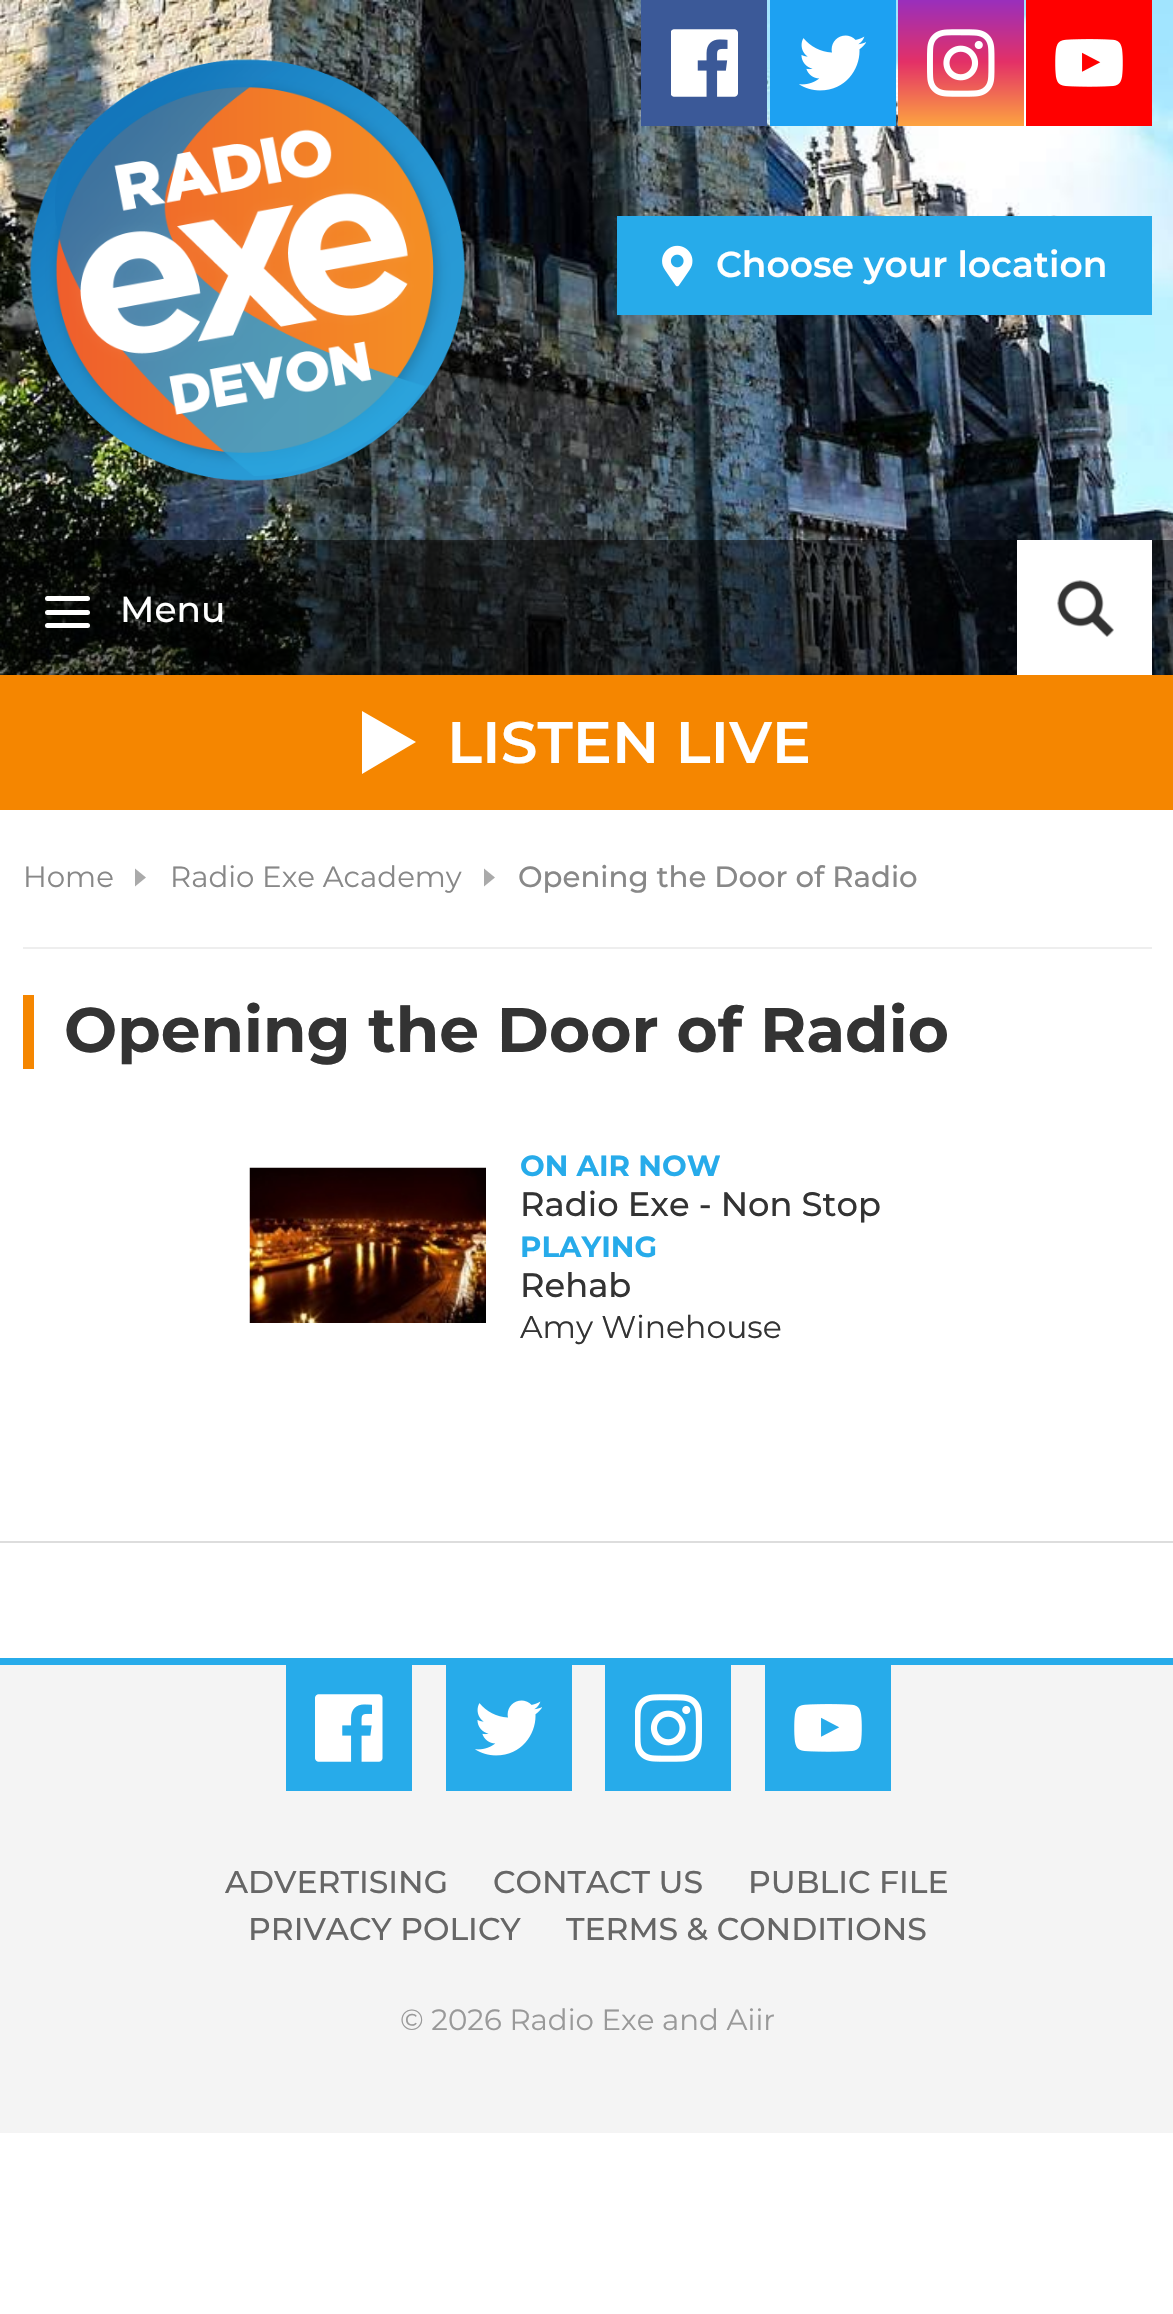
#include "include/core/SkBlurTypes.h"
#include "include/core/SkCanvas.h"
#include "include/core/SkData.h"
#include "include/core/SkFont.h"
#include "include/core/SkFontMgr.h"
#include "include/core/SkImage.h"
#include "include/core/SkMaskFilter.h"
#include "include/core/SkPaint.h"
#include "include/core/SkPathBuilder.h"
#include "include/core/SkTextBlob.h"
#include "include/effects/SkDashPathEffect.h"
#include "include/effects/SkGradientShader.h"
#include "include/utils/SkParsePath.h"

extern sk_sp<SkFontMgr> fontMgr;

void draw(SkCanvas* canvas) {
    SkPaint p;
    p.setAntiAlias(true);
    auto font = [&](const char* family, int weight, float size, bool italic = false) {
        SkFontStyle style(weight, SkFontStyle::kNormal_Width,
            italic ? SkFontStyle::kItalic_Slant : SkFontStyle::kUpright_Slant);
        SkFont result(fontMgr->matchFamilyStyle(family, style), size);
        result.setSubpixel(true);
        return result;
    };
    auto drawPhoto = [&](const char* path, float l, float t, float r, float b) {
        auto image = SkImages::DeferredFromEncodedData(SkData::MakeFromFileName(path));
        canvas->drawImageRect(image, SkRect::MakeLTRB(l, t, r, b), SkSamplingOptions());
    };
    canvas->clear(0xFFFFFFFF);
    drawPhoto("media/1.png", 0, 0, 1173, 675);
    {
        const SkColor colors[] = {0xFFFFFFFF, 0x00FFFFFF};
        const float stops[] = {0, 0.3f};
        SkMatrix m = SkMatrix::Translate(248, 270).preScale(636, 764);
        p.setShader(SkGradientShader::MakeRadial({0, 0}, 1, colors, stops, 2, SkTileMode::kClamp, 0, &m));
        p.setAlpha(255);
    }
    canvas->drawRect(SkRect::MakeLTRB(138, 47, 359, 494), p);
    drawPhoto("media/2.png", 30, 59, 465, 481);
    p.setShader(nullptr);
    p.setColor(0xFF3B5998);
    canvas->drawRect(SkRect::MakeLTRB(641, 0, 767, 126), p);
    drawPhoto("media/3.png", 671, 29, 738, 97);
    p.setColor(0xFF1DA1F2);
    canvas->drawRect(SkRect::MakeLTRB(770, 0, 896, 126), p);
    drawPhoto("media/4.png", 799, 35, 866, 91);
    {
        const SkColor colors[] = {0xFF992FBC, 0xFFE33067, 0xFFFDA440};
        const float stops[] = {0, 0.49f, 1};
        const SkPoint ends[] = {{961, 0}, {961, 126}};
        p.setShader(SkGradientShader::MakeLinear(ends, colors, stops, 3, SkTileMode::kClamp));
        p.setAlpha(255);
    }
    canvas->drawRect(SkRect::MakeLTRB(898, 0, 1024, 126), p);
    drawPhoto("media/5.png", 927, 29, 995, 97);
    p.setShader(nullptr);
    p.setColor(0xFFFF0000);
    canvas->drawRect(SkRect::MakeLTRB(1026, 0, 1152, 126), p);
    drawPhoto("media/6.png", 1055, 39, 1123, 87);
    p.setColor(0xFF27ABEA);
    canvas->drawRect(SkRect::MakeLTRB(617, 216, 1152, 315), p);
    drawPhoto("media/7.png", 662, 245, 693, 287);
    auto font1 = font("Montserrat", 600, 36);
    p.setColor(0xFFFFFFFF);
    canvas->drawString("Choose your location", 716, 277, font1, p);
    p.setColor(0x80000000);
    canvas->drawRect(SkRect::MakeLTRB(0, 540, 1173, 675), p);
    p.setColor(0xFFFFFFFF);
    canvas->drawRoundRect(SkRect::MakeLTRB(45, 596, 90, 601), 2.5f, 2.5f, p);
    canvas->drawRoundRect(SkRect::MakeLTRB(45, 610, 90, 615), 2.5f, 2.5f, p);
    canvas->drawRoundRect(SkRect::MakeLTRB(45, 623, 90, 628), 2.5f, 2.5f, p);
    auto font2 = font("Montserrat", 500, 36);
    canvas->drawString("Menu", 120, 622, font2, p);
    canvas->drawRect(SkRect::MakeLTRB(1017, 540, 1152, 675), p);
    drawPhoto("media/8.png", 1057, 580, 1114, 637);
    p.setColor(0xFFF58600);
    canvas->drawRect(SkRect::MakeLTRB(0, 675, 1173, 810), p);
    p.setColor(0xFFFFFFFF);
    canvas->drawPath(SkPathBuilder().moveTo(362, 774).lineTo(362, 711).lineTo(416, 742).close().detach(), p);
    auto font3 = font("Montserrat", 600, 58.5f);
    canvas->drawString("LISTEN LIVE", 447, 763, font3, p);
    p.setColor(0xFFEEEEEE);
    canvas->drawRect(SkRect::MakeLTRB(23, 947, 1152, 949), p);
    auto font4 = font("Montserrat", 400, 29.25f);
    p.setColor(0xFF888888);
    canvas->drawString("Home", 23, 887, font4, p);
    p.setColor(0xFFAAAAAA);
    canvas->drawPath(SkPathBuilder().moveTo(135, 886.5f).lineTo(135, 868.5f).lineTo(146, 877.5f).close().detach(), p);
    p.setColor(0xFF888888);
    canvas->drawString("Radio Exe Academy", 170, 887, font4, p);
    p.setColor(0xFFAAAAAA);
    canvas->drawPath(SkPathBuilder().moveTo(484, 886.5f).lineTo(484, 868.5f).lineTo(495, 877.5f).close().detach(), p);
    auto font5 = font("Montserrat", 500, 29.25f);
    p.setColor(0xFF888888);
    canvas->drawString("Opening the Door of Radio", 518, 887, font5, p);
    p.setColor(0xFFF58600);
    canvas->drawRect(SkRect::MakeLTRB(23, 995, 34, 1069), p);
    auto font6 = font("Montserrat", 700, 63);
    p.setColor(0xFF333333);
    canvas->drawString("Opening the Door of Radio", 64, 1052, font6, p);
    drawPhoto("media/9.png", 249, 1167, 486, 1323);
    auto font7 = font("Montserrat", 700, 29.25f);
    p.setColor(0xFF27ABEA);
    canvas->drawString("ON AIR NOW", 520, 1176, font7, p);
    auto font8 = font("Montserrat", 500, 33.75f);
    p.setColor(0xFF333333);
    canvas->drawString("Radio Exe - Non Stop", 520, 1216, font8, p);
    p.setColor(0xFF27ABEA);
    canvas->drawString("PLAYING", 520, 1257, font7, p);
    p.setColor(0xFF333333);
    canvas->drawString("Rehab", 520, 1297, font8, p);
    auto font9 = font("Montserrat", 400, 31.5f);
    canvas->drawString("Amy Winehouse", 520, 1338, font9, p);
    {
        const struct { float l, t, r, b; SkColor color; } items[] = {
            {0, 1541, 1173, 1543, 0xFFDDDDDD},
            {0, 1665, 1173, 2133, 0xFFF4F4F4},
            {0, 1658, 1173, 1665, 0xFF27ABEA},
            {286, 1665, 412, 1791, 0xFF27ABEA},
        };
        for (auto [l, t, r, b, color] : items) {
            p.setColor(color);
            canvas->drawRect(SkRect::MakeLTRB(l, t, r, b), p);
        }
    }
    drawPhoto("media/10.png", 315, 1694, 383, 1762);
    canvas->drawRect(SkRect::MakeLTRB(446, 1665, 572, 1791), p);
    drawPhoto("media/11.png", 475, 1700, 542, 1756);
    canvas->drawRect(SkRect::MakeLTRB(605, 1665, 731, 1791), p);
    drawPhoto("media/12.png", 635, 1694, 702, 1762);
    canvas->drawRect(SkRect::MakeLTRB(765, 1665, 891, 1791), p);
    drawPhoto("media/13.png", 794, 1704, 862, 1752);
    auto font10 = font("Montserrat", 500, 31.5f);
    p.setColor(0xFF666666);
    {
        const struct { const char* s; float x, y; } items[] = {
            {"ADVERTISING", 225, 1893},
            {"CONTACT US", 493, 1893},
            {"PUBLIC FILE", 748, 1893},
            {"PRIVACY POLICY", 248, 1940},
            {"TERMS & CONDITIONS", 566, 1940},
        };
        for (auto [s, x, y] : items) {
            canvas->drawString(s, x, y, font10, p);
        }
    }
    p.setColor(0xFF999999);
    canvas->drawString("© 2026 Radio Exe and Aiir", 400, 2030, font4, p);
}
